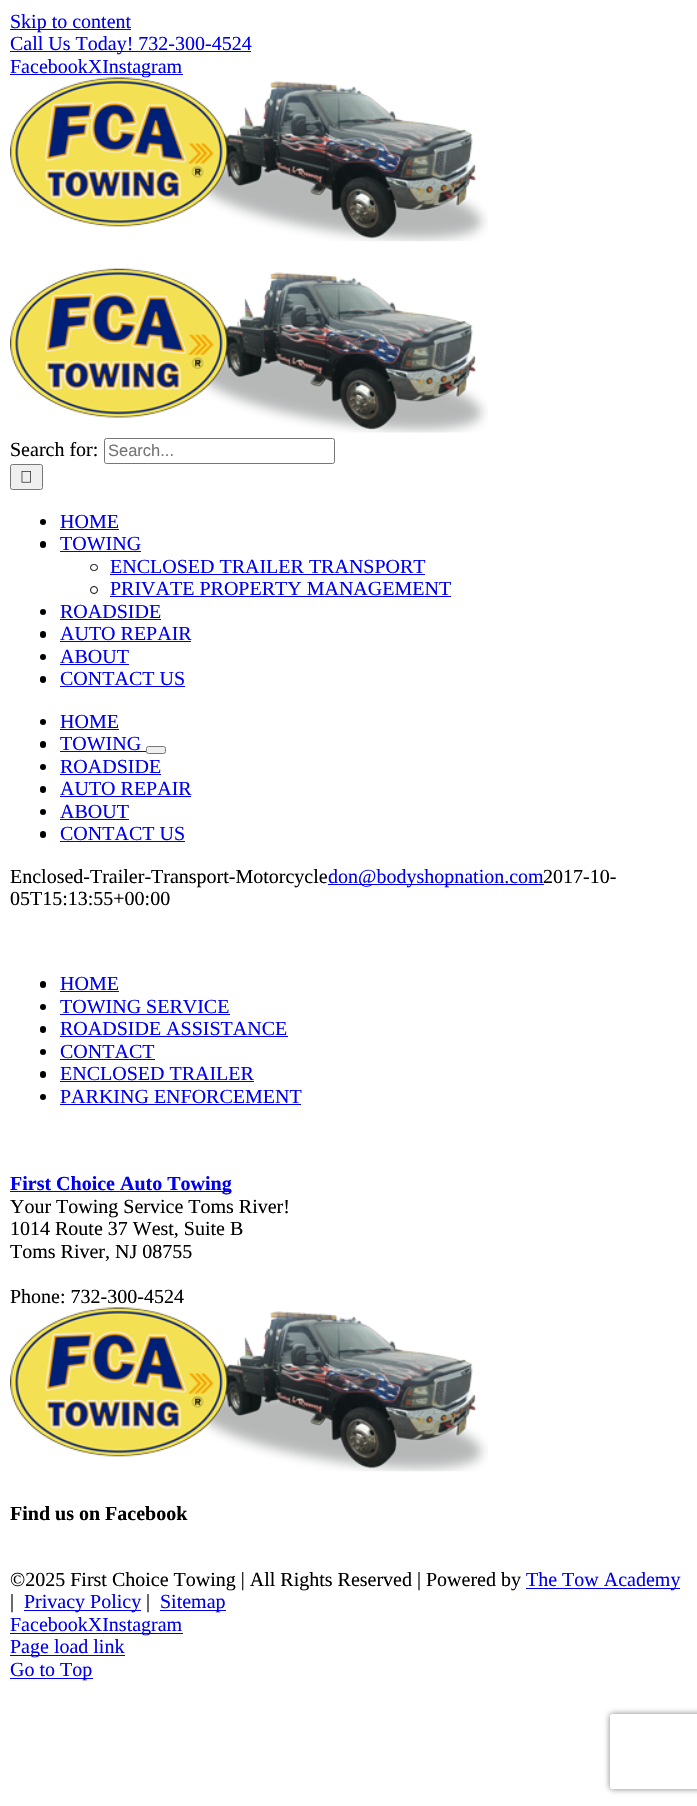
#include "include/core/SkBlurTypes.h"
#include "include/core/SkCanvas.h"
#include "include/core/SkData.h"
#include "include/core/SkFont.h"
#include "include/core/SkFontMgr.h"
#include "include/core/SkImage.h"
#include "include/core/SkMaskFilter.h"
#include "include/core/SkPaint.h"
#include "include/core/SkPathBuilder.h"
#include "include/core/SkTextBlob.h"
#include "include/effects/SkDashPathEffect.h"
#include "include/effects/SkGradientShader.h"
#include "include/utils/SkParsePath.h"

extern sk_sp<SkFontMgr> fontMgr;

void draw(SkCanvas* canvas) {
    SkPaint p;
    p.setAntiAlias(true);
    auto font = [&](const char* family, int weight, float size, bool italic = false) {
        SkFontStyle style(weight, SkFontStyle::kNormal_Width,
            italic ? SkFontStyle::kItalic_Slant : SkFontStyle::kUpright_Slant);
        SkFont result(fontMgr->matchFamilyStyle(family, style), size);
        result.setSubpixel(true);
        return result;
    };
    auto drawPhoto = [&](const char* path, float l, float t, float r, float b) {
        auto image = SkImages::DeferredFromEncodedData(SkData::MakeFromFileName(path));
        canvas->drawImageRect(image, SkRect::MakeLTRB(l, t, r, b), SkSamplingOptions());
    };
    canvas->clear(0xFFFFFFFF);
    p.setColor(0xFF0000EE);
    canvas->drawRect(SkRect::MakeLTRB(10, 29, 131, 30), p);
    auto font1 = font("Liberation Serif", 400, 20);
    canvas->drawString("Skip to content", 10, 28, font1, p);
    canvas->drawRect(SkRect::MakeLTRB(10, 51, 251, 52), p);
    canvas->drawString("Call Us Today! 732-300-4524", 10, 50, font1, p);
    canvas->drawRect(SkRect::MakeLTRB(10, 74, 183, 75), p);
    canvas->drawString("FacebookXInstagram", 10, 73, font1, p);
    drawPhoto("media/1.png", 10, 77, 488, 242);
    drawPhoto("media/2.png", 10, 268, 488, 433);
    p.setColor(0xFF000000);
    canvas->drawString("Search for:", 10, 456, font1, p);
    p.setStyle(SkPaint::kStroke_Style);
    p.setStrokeWidth(1);
    p.setColor(0xFF767676);
    canvas->drawRoundRect(SkRect::MakeLTRB(104.5f, 438.5f, 334.5f, 463.5f), 2, 2, p);
    auto font2 = font("Liberation Sans", 400, 16.5f);
    p.setStyle(SkPaint::kFill_Style);
    p.setColor(0xFF757575);
    canvas->drawString("Search...", 108, 456, font2, p);
    p.setColor(0xFFEFEFEF);
    canvas->drawRoundRect(SkRect::MakeLTRB(10.5f, 464.5f, 42.5f, 489.5f), 2, 2, p);
    p.setStyle(SkPaint::kStroke_Style);
    p.setColor(0xFF767676);
    canvas->drawRoundRect(SkRect::MakeLTRB(10.5f, 464.5f, 42.5f, 489.5f), 2, 2, p);
    drawPhoto("media/3.png", 21, 471, 31, 483);
    p.setStyle(SkPaint::kFill_Style);
    p.setColor(0xFF000000);
    canvas->drawCircle(43, 522, 3, p);
    p.setColor(0xFF0000EE);
    canvas->drawString("HOME", 60, 528, font1, p);
    canvas->drawRect(SkRect::MakeLTRB(60, 529, 119, 530), p);
    p.setColor(0xFF000000);
    canvas->drawRoundRect(SkRect::MakeLTRB(40, 541, 46, 548), 3, 3, p);
    p.setColor(0xFF0000EE);
    canvas->drawString("TOWING", 60, 550, font1, p);
    canvas->drawRect(SkRect::MakeLTRB(60, 551, 141, 552), p);
    p.setStyle(SkPaint::kStroke_Style);
    p.setColor(0xFF000000);
    canvas->drawRoundRect(SkRect::MakeLTRB(90.5f, 564.5f, 97.5f, 570.5f), 3, 3, p);
    p.setStyle(SkPaint::kFill_Style);
    p.setColor(0xFF0000EE);
    canvas->drawString("ENCLOSED TRAILER TRANSPORT", 110, 573, font1, p);
    canvas->drawRect(SkRect::MakeLTRB(110, 574, 425, 575), p);
    p.setStyle(SkPaint::kStroke_Style);
    p.setColor(0xFF000000);
    canvas->drawCircle(94, 590, 3.5f, p);
    p.setStyle(SkPaint::kFill_Style);
    p.setColor(0xFF0000EE);
    canvas->drawString("PRIVATE PROPERTY MANAGEMENT", 110, 595, font1, p);
    canvas->drawRect(SkRect::MakeLTRB(110, 596, 451, 597), p);
    p.setColor(0xFF000000);
    canvas->drawCircle(43, 612, 3, p);
    p.setColor(0xFF0000EE);
    canvas->drawString("ROADSIDE", 60, 618, font1, p);
    canvas->drawRect(SkRect::MakeLTRB(60, 619, 161, 620), p);
    p.setColor(0xFF000000);
    canvas->drawRoundRect(SkRect::MakeLTRB(40, 631, 46, 638), 3, 3, p);
    p.setColor(0xFF0000EE);
    canvas->drawString("AUTO REPAIR", 60, 640, font1, p);
    canvas->drawRect(SkRect::MakeLTRB(60, 641, 191, 642), p);
    p.setColor(0xFF000000);
    canvas->drawCircle(43, 657, 3, p);
    p.setColor(0xFF0000EE);
    canvas->drawString("ABOUT", 60, 663, font1, p);
    canvas->drawRect(SkRect::MakeLTRB(60, 664, 129, 665), p);
    p.setColor(0xFF000000);
    canvas->drawRoundRect(SkRect::MakeLTRB(40, 676, 46, 683), 3, 3, p);
    p.setColor(0xFF0000EE);
    canvas->drawString("CONTACT US", 60, 685, font1, p);
    canvas->drawRect(SkRect::MakeLTRB(60, 686, 185, 687), p);
    p.setColor(0xFF000000);
    canvas->drawCircle(43, 722, 3, p);
    p.setColor(0xFF0000EE);
    canvas->drawString("HOME", 60, 728, font1, p);
    canvas->drawRect(SkRect::MakeLTRB(60, 729, 119, 730), p);
    p.setColor(0xFF000000);
    canvas->drawRoundRect(SkRect::MakeLTRB(40, 741, 46, 748), 3, 3, p);
    p.setColor(0xFF0000EE);
    canvas->drawString("TOWING", 60, 750, font1, p);
    canvas->drawRect(SkRect::MakeLTRB(60, 751, 146, 752), p);
    p.setColor(0xFFEFEFEF);
    canvas->drawRoundRect(SkRect::MakeLTRB(146.5f, 746.5f, 165.5f, 753.5f), 2, 2, p);
    p.setStyle(SkPaint::kStroke_Style);
    p.setColor(0xFF767676);
    canvas->drawRoundRect(SkRect::MakeLTRB(146.5f, 746.5f, 165.5f, 753.5f), 2, 2, p);
    p.setStyle(SkPaint::kFill_Style);
    p.setColor(0xFF000000);
    canvas->drawCircle(43, 767, 3, p);
    p.setColor(0xFF0000EE);
    canvas->drawString("ROADSIDE", 60, 773, font1, p);
    canvas->drawRect(SkRect::MakeLTRB(60, 774, 161, 775), p);
    p.setColor(0xFF000000);
    canvas->drawRoundRect(SkRect::MakeLTRB(40, 786, 46, 793), 3, 3, p);
    p.setColor(0xFF0000EE);
    canvas->drawString("AUTO REPAIR", 60, 795, font1, p);
    canvas->drawRect(SkRect::MakeLTRB(60, 796, 191, 797), p);
    p.setColor(0xFF000000);
    canvas->drawCircle(43, 812, 3, p);
    p.setColor(0xFF0000EE);
    canvas->drawString("ABOUT", 60, 818, font1, p);
    canvas->drawRect(SkRect::MakeLTRB(60, 819, 129, 820), p);
    p.setColor(0xFF000000);
    canvas->drawRoundRect(SkRect::MakeLTRB(40, 831, 46, 838), 3, 3, p);
    p.setColor(0xFF0000EE);
    canvas->drawString("CONTACT US", 60, 840, font1, p);
    canvas->drawRect(SkRect::MakeLTRB(60, 841, 185, 842), p);
    p.setColor(0xFF000000);
    canvas->drawString("Enclosed-Trailer-Transport-Motorcycle", 10, 883, font1, p);
    p.setColor(0xFF0000EE);
    canvas->drawRect(SkRect::MakeLTRB(328, 884, 544, 885), p);
    canvas->drawString("don@bodyshopnation.com", 328, 883, font1, p);
    p.setColor(0xFF000000);
    canvas->drawString("2017-10-", 543, 883, font1, p);
    canvas->drawString("05T15:13:55+00:00", 10, 905, font1, p);
    canvas->drawRoundRect(SkRect::MakeLTRB(40, 981, 46, 988), 3, 3, p);
    p.setColor(0xFF0000EE);
    canvas->drawString("HOME", 60, 990, font1, p);
    canvas->drawRect(SkRect::MakeLTRB(60, 991, 119, 992), p);
    p.setColor(0xFF000000);
    canvas->drawCircle(43, 1007, 3, p);
    p.setColor(0xFF0000EE);
    canvas->drawString("TOWING SERVICE", 60, 1013, font1, p);
    canvas->drawRect(SkRect::MakeLTRB(60, 1014, 230, 1015), p);
    p.setColor(0xFF000000);
    canvas->drawRoundRect(SkRect::MakeLTRB(40, 1026, 46, 1033), 3, 3, p);
    p.setColor(0xFF0000EE);
    canvas->drawString("ROADSIDE ASSISTANCE", 60, 1035, font1, p);
    canvas->drawRect(SkRect::MakeLTRB(60, 1036, 288, 1037), p);
    p.setColor(0xFF000000);
    canvas->drawCircle(43, 1052, 3, p);
    p.setColor(0xFF0000EE);
    canvas->drawString("CONTACT", 60, 1058, font1, p);
    canvas->drawRect(SkRect::MakeLTRB(60, 1059, 155, 1060), p);
    p.setColor(0xFF000000);
    canvas->drawRoundRect(SkRect::MakeLTRB(40, 1071, 46, 1078), 3, 3, p);
    p.setColor(0xFF0000EE);
    canvas->drawString("ENCLOSED TRAILER", 60, 1080, font1, p);
    canvas->drawRect(SkRect::MakeLTRB(60, 1081, 254, 1082), p);
    p.setColor(0xFF000000);
    canvas->drawCircle(43, 1097, 3, p);
    p.setColor(0xFF0000EE);
    canvas->drawString("PARKING ENFORCEMENT", 60, 1103, font1, p);
    canvas->drawRect(SkRect::MakeLTRB(60, 1104, 301, 1105), p);
    canvas->drawRect(SkRect::MakeLTRB(10, 1191, 231, 1192), p);
    auto font3 = font("Liberation Serif", 700, 20);
    canvas->drawString("First Choice Auto Towing", 10, 1190, font3, p);
    p.setColor(0xFF000000);
    {
        const struct { const char* s; float x, y; } items[] = {
            {"Your Towing Service Toms River!", 10, 1213},
            {"1014 Route 37 West, Suite B", 10, 1235},
            {"Toms River, NJ 08755", 10, 1258},
            {"Phone: 732-300-4524", 10, 1303},
        };
        for (auto [s, x, y] : items) {
            canvas->drawString(s, x, y, font1, p);
        }
    }
    drawPhoto("media/4.png", 10, 1307, 488, 1472);
    canvas->drawString("Find us on Facebook", 10, 1520, font3, p);
    canvas->drawString("©2025 First Choice Towing | All Rights Reserved | Powered by", 10, 1586, font1, p);
    p.setColor(0xFF0000EE);
    canvas->drawRect(SkRect::MakeLTRB(526, 1588, 680, 1589), p);
    canvas->drawString("The Tow Academy", 526, 1586, font1, p);
    p.setColor(0xFF000000);
    canvas->drawString("|", 10, 1608, font1, p);
    p.setColor(0xFF0000EE);
    canvas->drawRect(SkRect::MakeLTRB(24, 1610, 141, 1611), p);
    canvas->drawString("Privacy Policy", 24, 1608, font1, p);
    p.setColor(0xFF000000);
    canvas->drawString("|", 146, 1608, font1, p);
    p.setColor(0xFF0000EE);
    canvas->drawRect(SkRect::MakeLTRB(160, 1610, 226, 1611), p);
    canvas->drawString("Sitemap", 160, 1608, font1, p);
    canvas->drawRect(SkRect::MakeLTRB(10, 1633, 183, 1634), p);
    canvas->drawString("FacebookXInstagram", 10, 1631, font1, p);
    canvas->drawRect(SkRect::MakeLTRB(10, 1655, 125, 1656), p);
    canvas->drawString("Page load link", 10, 1653, font1, p);
    canvas->drawRect(SkRect::MakeLTRB(10, 1678, 93, 1679), p);
    canvas->drawString("Go to Top", 10, 1676, font1, p);
    canvas->save();
    canvas->clipPath(SkPathBuilder(SkPathFillType::kEvenOdd).moveTo(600, 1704).lineTo(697, 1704).lineTo(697, 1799).lineTo(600, 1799).close().moveTo(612.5f, 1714).lineTo(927.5f, 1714).cubicTo(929, 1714, 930, 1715, 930, 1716.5f).lineTo(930, 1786.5f).cubicTo(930, 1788, 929, 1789, 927.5f, 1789).lineTo(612.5f, 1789).cubicTo(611, 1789, 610, 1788, 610, 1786.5f).lineTo(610, 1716.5f).cubicTo(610, 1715, 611, 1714, 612.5f, 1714).close().detach(), true);
    p.setColor(0xFF808080);
    p.setMaskFilter(SkMaskFilter::MakeBlur(kNormal_SkBlurStyle, 3));
    canvas->drawRoundRect(SkRect::MakeLTRB(610, 1714, 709, 1789), 2.5f, 2.5f, p);
    p.setMaskFilter(nullptr);
    canvas->restore();
}
